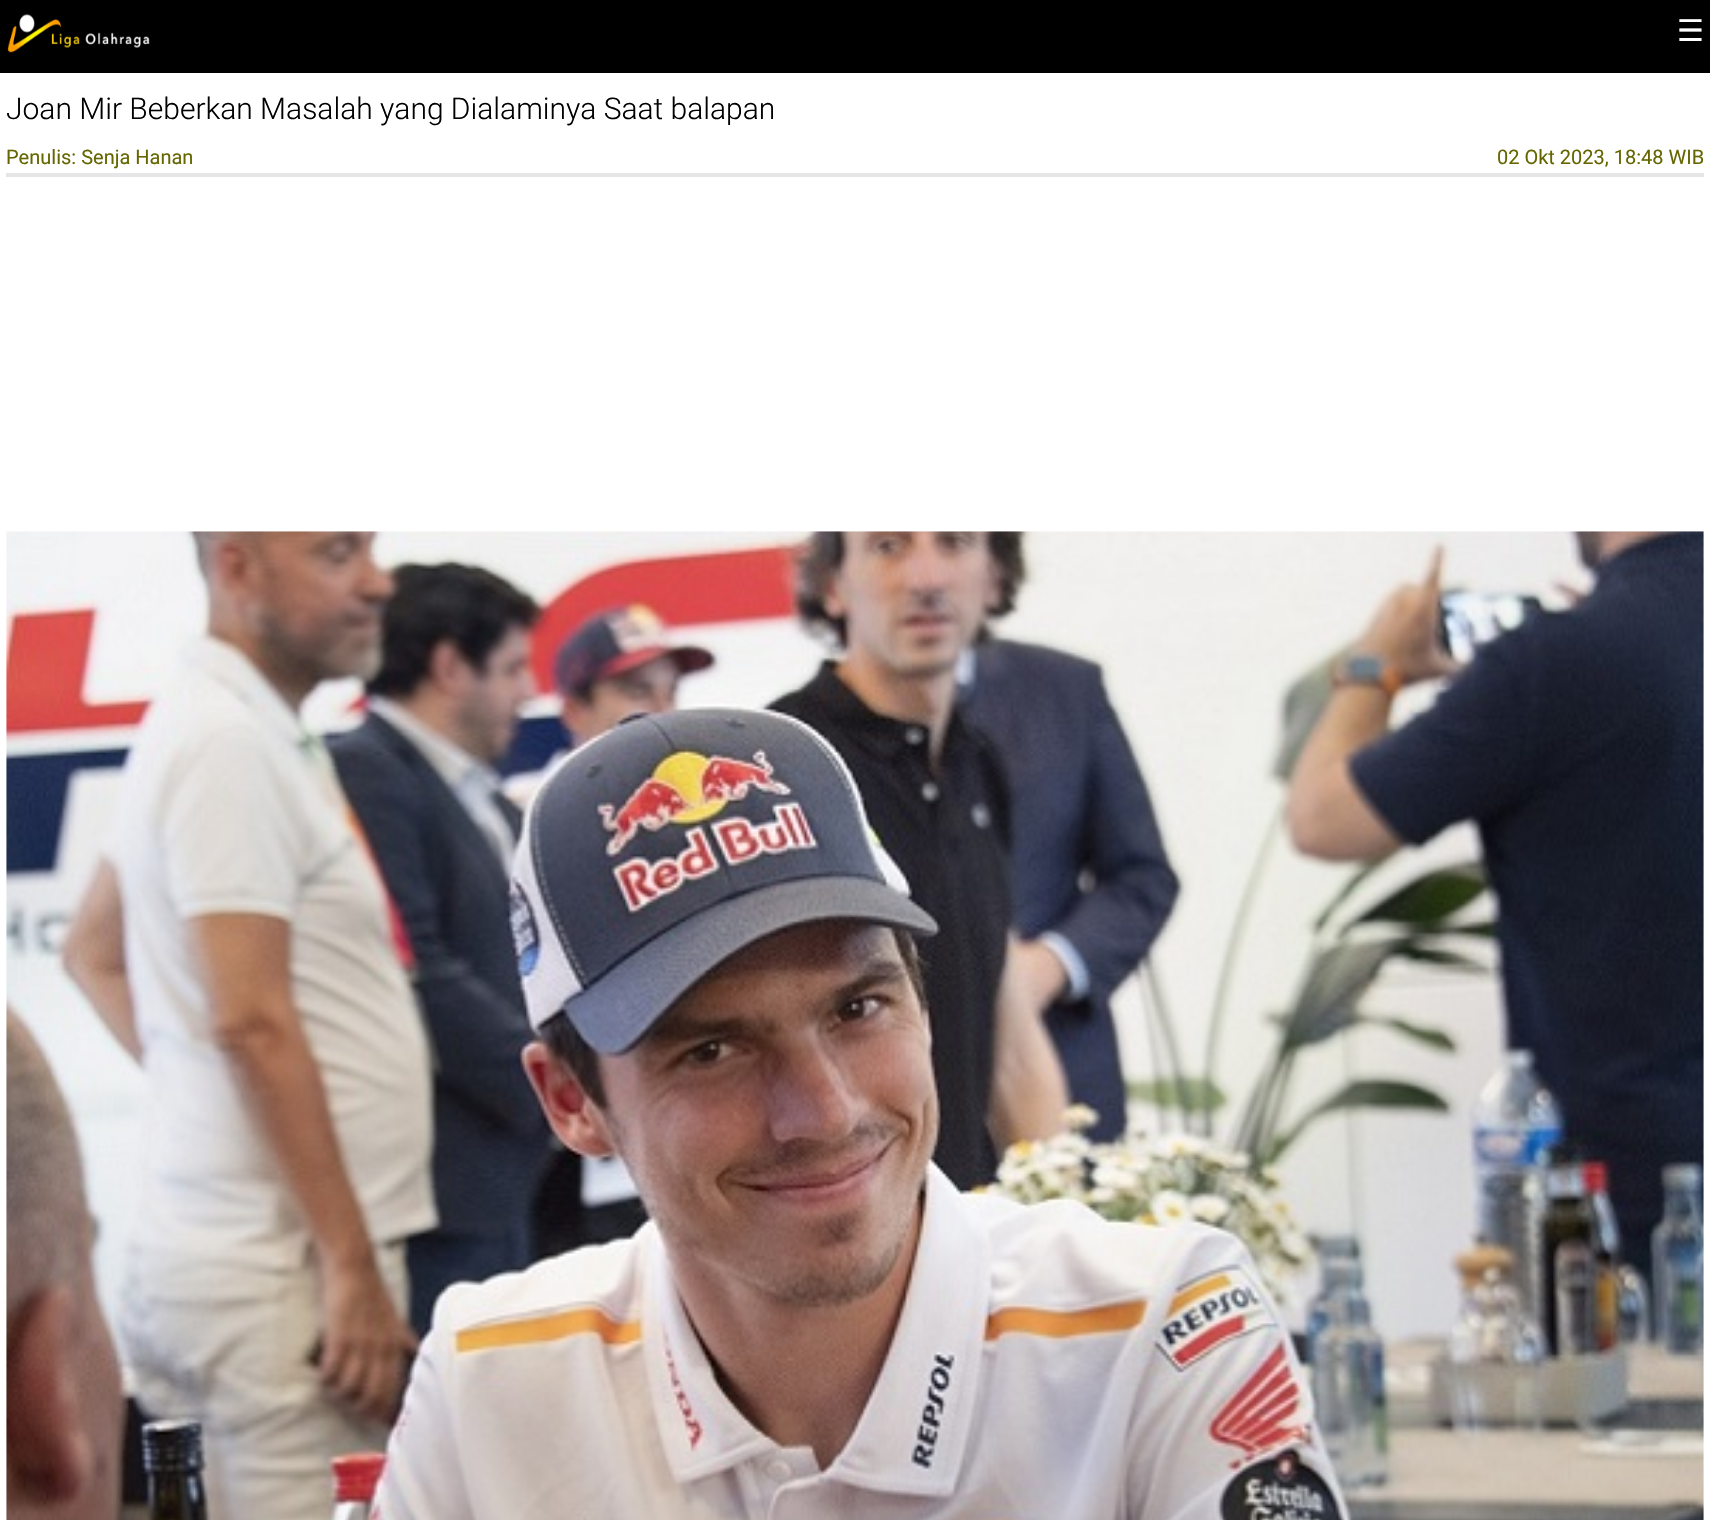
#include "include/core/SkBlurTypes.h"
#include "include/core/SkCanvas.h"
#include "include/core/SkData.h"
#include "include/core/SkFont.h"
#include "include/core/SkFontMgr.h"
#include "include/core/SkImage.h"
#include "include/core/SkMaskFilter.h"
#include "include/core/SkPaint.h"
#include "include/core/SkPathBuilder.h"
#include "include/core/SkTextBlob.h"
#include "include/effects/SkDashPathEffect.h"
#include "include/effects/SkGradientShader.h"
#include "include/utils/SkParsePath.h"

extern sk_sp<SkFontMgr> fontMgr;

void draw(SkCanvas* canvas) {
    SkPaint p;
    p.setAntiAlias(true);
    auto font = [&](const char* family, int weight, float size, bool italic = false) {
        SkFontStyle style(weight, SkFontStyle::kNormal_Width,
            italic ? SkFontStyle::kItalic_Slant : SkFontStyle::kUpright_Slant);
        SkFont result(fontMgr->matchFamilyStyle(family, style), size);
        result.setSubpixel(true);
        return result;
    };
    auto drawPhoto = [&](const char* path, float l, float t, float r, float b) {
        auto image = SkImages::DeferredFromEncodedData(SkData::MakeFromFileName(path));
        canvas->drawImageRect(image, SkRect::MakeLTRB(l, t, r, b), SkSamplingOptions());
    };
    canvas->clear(0xFFFFFFFF);
    p.setColor(0xFF000000);
    canvas->drawRect(SkRect::MakeLTRB(0, 0, 1710, 73), p);
    drawPhoto("media/1.png", 7, 14, 150, 53);
    auto font1 = font("DejaVu Sans", 400, 30);
    p.setColor(0xFFFFFFFF);
    canvas->drawString("☰", 1677, 41, font1, p);
    auto font2 = font("Roboto", 300, 30);
    p.setColor(0xFF000000);
    canvas->drawString("Joan Mir Beberkan Masalah yang Dialaminya Saat balapan", 6, 119, font2, p);
    p.setColor(0xFFE6E6E6);
    canvas->drawRect(SkRect::MakeLTRB(6, 173, 1704, 177), p);
    auto font3 = font("Roboto", 400, 20);
    p.setColor(0xFF666600);
    canvas->drawString("Penulis: Senja Hanan", 6, 164, font3, p);
    canvas->drawString("02 Okt 2023, 18:48 WIB", 1497, 164, font3, p);
    drawPhoto("media/2.png", 6, 531, 1704, 1520);
}
